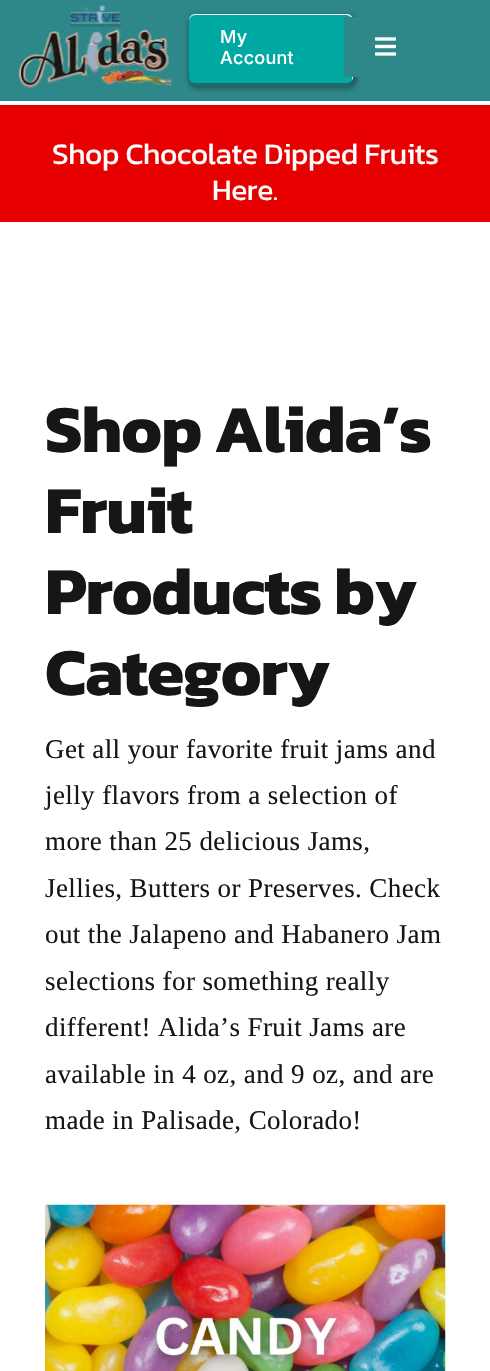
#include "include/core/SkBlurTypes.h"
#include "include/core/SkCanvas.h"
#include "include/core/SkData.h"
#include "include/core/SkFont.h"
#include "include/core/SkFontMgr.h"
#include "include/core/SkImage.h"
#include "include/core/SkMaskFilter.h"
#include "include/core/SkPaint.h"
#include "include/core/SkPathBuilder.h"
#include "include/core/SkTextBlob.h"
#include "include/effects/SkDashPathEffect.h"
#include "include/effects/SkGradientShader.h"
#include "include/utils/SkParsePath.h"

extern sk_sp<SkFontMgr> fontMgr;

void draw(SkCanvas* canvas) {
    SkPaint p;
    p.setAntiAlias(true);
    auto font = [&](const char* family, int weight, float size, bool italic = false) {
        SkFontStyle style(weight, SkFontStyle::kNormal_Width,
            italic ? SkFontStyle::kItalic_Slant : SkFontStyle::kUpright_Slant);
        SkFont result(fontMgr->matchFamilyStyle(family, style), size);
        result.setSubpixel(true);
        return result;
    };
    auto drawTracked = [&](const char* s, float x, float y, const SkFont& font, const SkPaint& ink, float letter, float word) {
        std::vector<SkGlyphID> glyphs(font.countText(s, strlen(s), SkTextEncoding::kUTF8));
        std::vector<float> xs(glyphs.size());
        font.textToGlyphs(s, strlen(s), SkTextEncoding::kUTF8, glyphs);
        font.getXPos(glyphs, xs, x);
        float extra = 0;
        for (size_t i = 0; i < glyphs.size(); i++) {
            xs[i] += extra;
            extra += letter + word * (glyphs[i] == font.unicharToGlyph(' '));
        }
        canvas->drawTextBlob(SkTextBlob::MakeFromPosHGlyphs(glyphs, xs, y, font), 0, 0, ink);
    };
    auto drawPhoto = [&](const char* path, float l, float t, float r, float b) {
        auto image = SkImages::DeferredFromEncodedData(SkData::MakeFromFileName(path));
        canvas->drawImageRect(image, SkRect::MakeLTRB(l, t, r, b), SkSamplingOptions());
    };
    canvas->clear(0xFFFFFFFF);
    p.setColor(0xFF2E8788);
    canvas->drawRect(SkRect::MakeLTRB(0, 0, 490, 101), p);
    drawPhoto("media/1.png", 18, 5, 172, 89);
    p.setColor(0x4D000000);
    p.setMaskFilter(SkMaskFilter::MakeBlur(kNormal_SkBlurStyle, 2));
    canvas->drawRoundRect(SkRect::MakeLTRB(188, 15, 357, 89), 9, 9, p);
    p.setMaskFilter(nullptr);
    p.setColor(0xFF1D696B);
    canvas->drawPath(SkPathBuilder().moveTo(189, 76).lineTo(189, 80).cubicTo(189, 83, 192, 86, 195, 86).lineTo(347, 86).cubicTo(350, 86, 353, 83, 353, 80).lineTo(353, 23).lineTo(352, 21).lineTo(352, 76).cubicTo(352, 80, 350, 82, 346, 82).lineTo(195, 82).cubicTo(192, 82, 189, 80, 189, 76).close().detach(), p);
    p.setColor(0xFF00A8A2);
    canvas->drawRoundRect(SkRect::MakeLTRB(189, 14, 353, 83), 6, 6, p);
    p.setColor(0xFFFFFFFF);
    canvas->drawPath(SkPathBuilder().moveTo(195, 15).lineTo(346, 15).cubicTo(350, 15, 352, 18, 352, 21).lineTo(352, 78).cubicTo(352, 79, 352, 80, 351, 81).cubicTo(352, 80, 353, 79, 353, 77).lineTo(353, 20).cubicTo(353, 17, 350, 14, 347, 14).lineTo(195, 14).cubicTo(192, 14, 189, 17, 189, 20).lineTo(189, 21).cubicTo(189, 18, 192, 15, 195, 15).close().detach(), p);
    auto font1 = font("Inter", 500, 18);
    drawTracked("My", 220, 43, font1, p, 0.25f, 0);
    drawTracked("Account", 220, 64, font1, p, 0.25f, 0);
    p.setColor(0xFF2E8788);
    canvas->drawRect(SkRect::MakeLTRB(344, 17, 360, 77), p);
    drawPhoto("media/2.png", 375, 37, 396, 56);
    p.setColor(0xFFE80000);
    canvas->drawRect(SkRect::MakeLTRB(0, 105, 490, 222), p);
    auto font2 = font("Kanit", 400, 30);
    p.setColor(0xFFFFFFFF);
    drawTracked("Shop Chocolate Dipped Fruits", 52, 164, font2, p, -0.45f, 0);
    drawTracked("Here.", 212, 200, font2, p, -0.45f, 0);
    auto font3 = font("Kanit", 700, 67.5f);
    p.setColor(0xFF141617);
    {
        const struct { const char* s; float x, y; } items[] = {
            {"Shop Alida’s", 45, 452},
            {"Fruit", 45, 533},
            {"Products by", 45, 614},
            {"Category", 45, 695},
        };
        for (auto [s, x, y] : items) {
            drawTracked(s, x, y, font3, p, -1, 0);
        }
    }
    auto font4 = font("Liberation Serif", 400, 27);
    {
        const struct { const char* s; float x, y; } items[] = {
            {"Get all your favorite fruit jams and", 45, 758},
            {"jelly flavors from a selection of", 45, 804},
            {"more than 25 delicious Jams,", 45, 850},
            {"Jellies, Butters or Preserves. Check", 45, 897},
            {"out the Jalapeno and Habanero Jam", 45, 943},
            {"selections for something really", 45, 990},
            {"different! Alida’s Fruit Jams are", 45, 1036},
            {"available in 4 oz, and 9 oz, and are", 45, 1083},
            {"made in Palisade, Colorado!", 45, 1129},
        };
        for (auto [s, x, y] : items) {
            drawTracked(s, x, y, font4, p, 0.4f, 0);
        }
    }
    drawPhoto("media/3.png", 45, 1204, 446, 1371);
}
